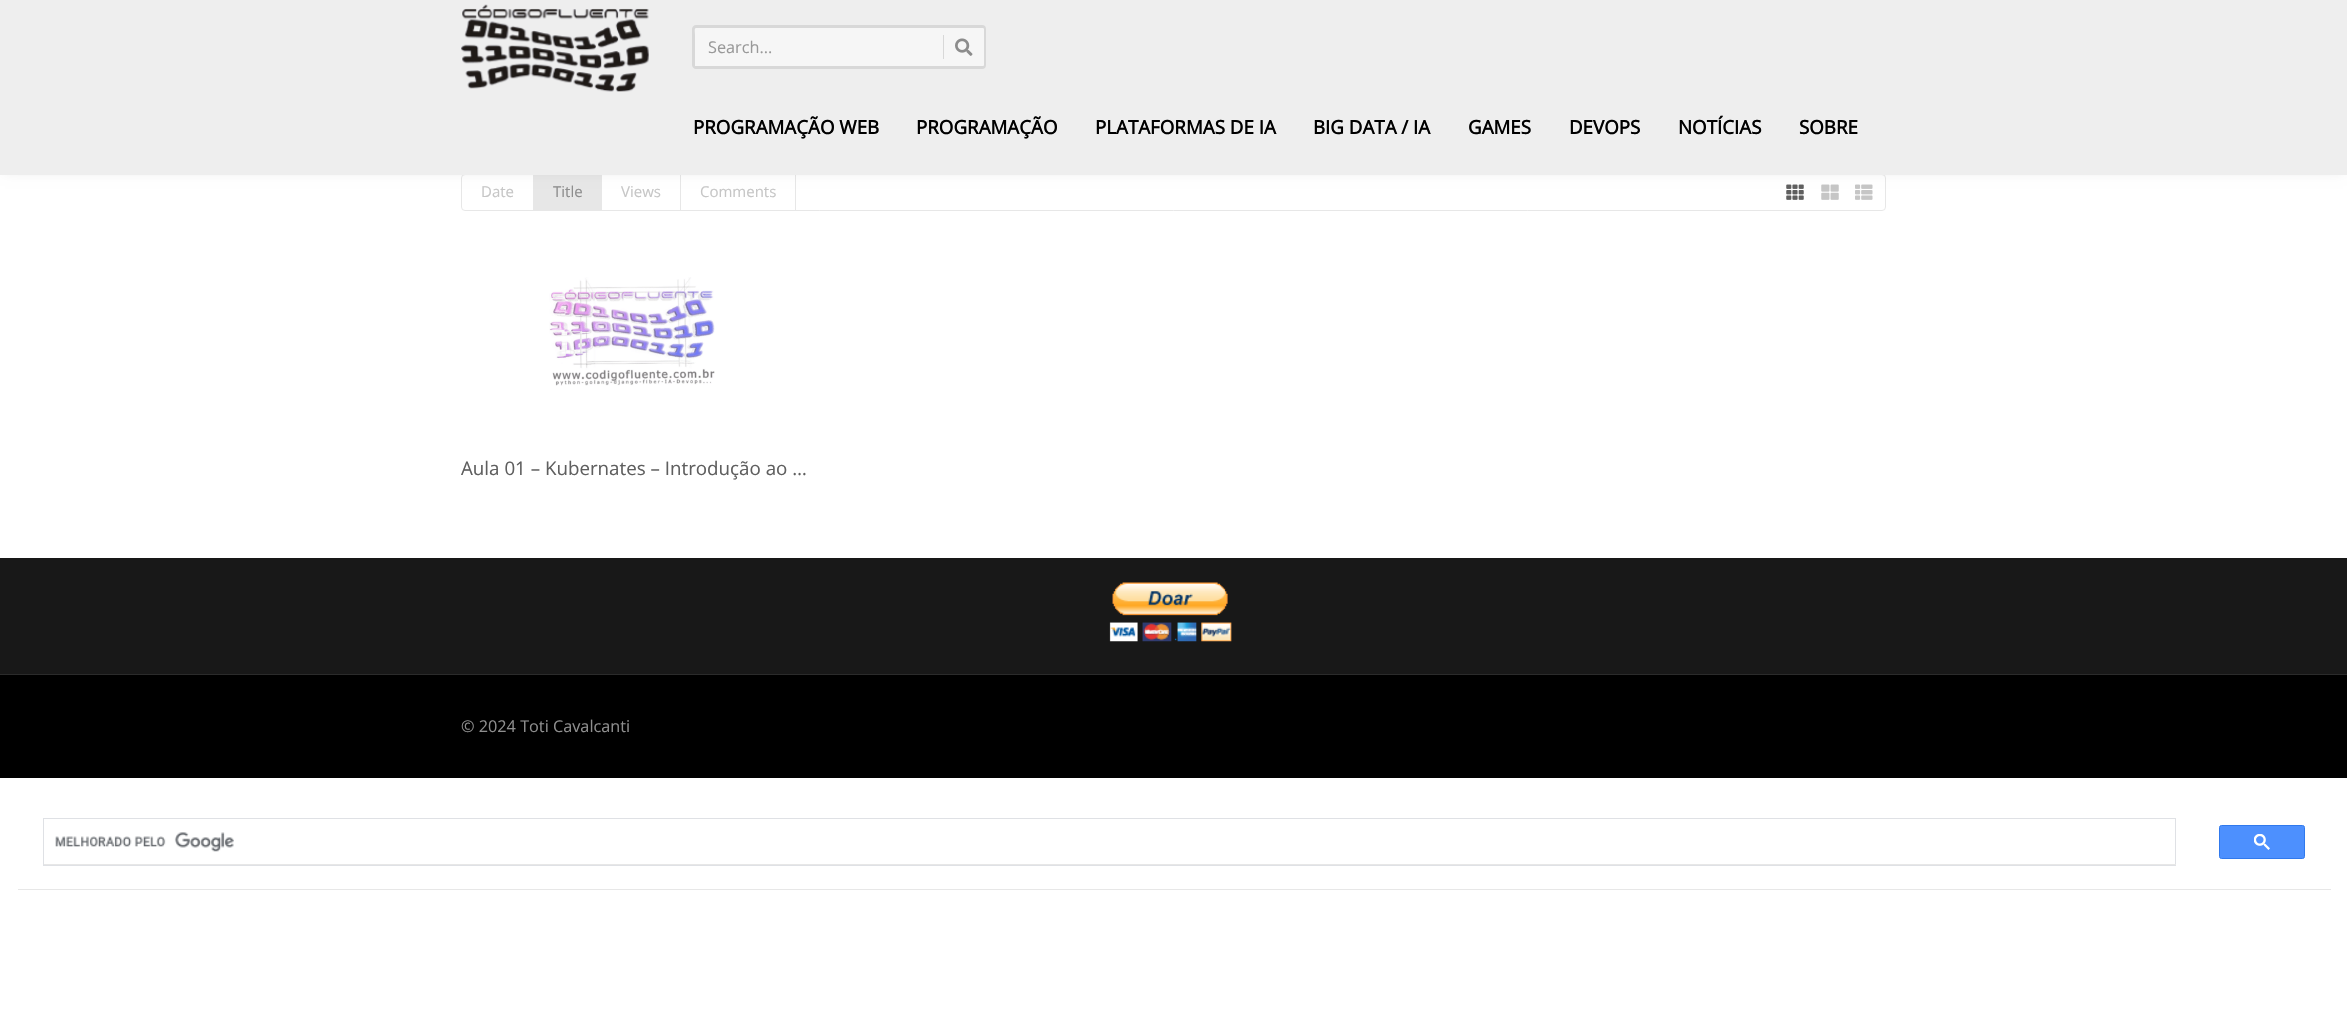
#include "include/core/SkBlurTypes.h"
#include "include/core/SkCanvas.h"
#include "include/core/SkData.h"
#include "include/core/SkFont.h"
#include "include/core/SkFontMgr.h"
#include "include/core/SkImage.h"
#include "include/core/SkMaskFilter.h"
#include "include/core/SkPaint.h"
#include "include/core/SkPathBuilder.h"
#include "include/core/SkTextBlob.h"
#include "include/effects/SkDashPathEffect.h"
#include "include/effects/SkGradientShader.h"
#include "include/utils/SkParsePath.h"

extern sk_sp<SkFontMgr> fontMgr;

void draw(SkCanvas* canvas) {
    SkPaint p;
    p.setAntiAlias(true);
    auto font = [&](const char* family, int weight, float size, bool italic = false) {
        SkFontStyle style(weight, SkFontStyle::kNormal_Width,
            italic ? SkFontStyle::kItalic_Slant : SkFontStyle::kUpright_Slant);
        SkFont result(fontMgr->matchFamilyStyle(family, style), size);
        result.setSubpixel(true);
        return result;
    };
    auto drawPhoto = [&](const char* path, float l, float t, float r, float b) {
        auto image = SkImages::DeferredFromEncodedData(SkData::MakeFromFileName(path));
        canvas->drawImageRect(image, SkRect::MakeLTRB(l, t, r, b), SkSamplingOptions());
    };
    canvas->clear(0xFFFFFFFF);
    p.setStyle(SkPaint::kStroke_Style);
    p.setStrokeWidth(1);
    p.setColor(0xFFE7E7E7);
    canvas->drawRoundRect(SkRect::MakeLTRB(461.5f, 174.5f, 1885.5f, 210.5f), 3.5f, 3.5f, p);
    p.setStyle(SkPaint::kFill_Style);
    {
        const struct { float l, t, r, b; SkColor color; } items[] = {
            {533, 175, 602, 210, 0xFFE7E7E7},
            {795, 175, 796, 210, 0xFFE7E7E7},
            {680, 175, 681, 210, 0xFFE7E7E7},
        };
        for (auto [l, t, r, b, color] : items) {
            p.setColor(color);
            canvas->drawRect(SkRect::MakeLTRB(l, t, r, b), p);
        }
    }
    drawPhoto("media/3.png", 1786, 184, 1804, 200);
    drawPhoto("media/4.png", 1821, 184, 1839, 200);
    drawPhoto("media/5.png", 1855, 184, 1873, 200);
    p.setColor(0x12000000);
    p.setMaskFilter(SkMaskFilter::MakeBlur(kNormal_SkBlurStyle, 5.5f));
    canvas->drawRect(SkRect::MakeLTRB(5, 8, 2343, 173), p);
    p.setMaskFilter(nullptr);
    p.setColor(0xFFEEEEEE);
    canvas->drawRect(SkRect::MakeLTRB(0, 0, 2347, 175), p);
    drawPhoto("media/1.png", 461, 4, 649, 92);
    p.setColor(0xFFF6F6F6);
    canvas->drawPath(SkPathBuilder().moveTo(697, 25).lineTo(943, 25).lineTo(943, 69).lineTo(697, 69).cubicTo(695, 69, 693, 67, 693, 65).lineTo(693, 29).cubicTo(693, 27, 695, 25, 697, 25).close().detach(), p);
    p.setColor(0xFFD8D8D8);
    canvas->drawPath(SkPathBuilder(SkPathFillType::kEvenOdd).moveTo(696, 25).lineTo(942, 25).lineTo(942, 69).lineTo(696, 69).cubicTo(694, 69, 692, 67, 692, 65).lineTo(692, 29).cubicTo(692, 27, 694, 25, 696, 25).close().moveTo(696, 28).lineTo(942, 28).lineTo(942, 66).lineTo(696, 66).lineTo(695, 66).lineTo(695, 35).cubicTo(695, 32, 694, 28, 696, 28).close().detach(), p);
    auto font1 = font("Open Sans", 400, 16.25f);
    p.setColor(0xFF999999);
    canvas->drawString("Search...", 708, 53, font1, p);
    p.setColor(0xFFF6F6F6);
    canvas->drawPath(SkPathBuilder().moveTo(943, 25).lineTo(982, 25).cubicTo(984, 25, 986, 27, 986, 29).lineTo(986, 65).cubicTo(986, 67, 984, 69, 982, 69).lineTo(943, 69).close().detach(), p);
    p.setColor(0xFFD8D8D8);
    canvas->drawPath(SkPathBuilder(SkPathFillType::kEvenOdd).moveTo(942, 25).lineTo(982, 25).cubicTo(985, 25, 986, 27, 986, 29).lineTo(986, 65).cubicTo(986, 67, 985, 69, 982, 69).lineTo(942, 69).close().moveTo(942, 28).lineTo(982, 28).cubicTo(983, 28, 984, 28, 984, 29).lineTo(984, 65).cubicTo(984, 66, 983, 66, 982, 66).lineTo(942, 66).close().detach(), p);
    canvas->drawRect(SkRect::MakeLTRB(943, 35, 944, 59), p);
    drawPhoto("media/2.png", 955, 38, 973, 56);
    auto font2 = font("Open Sans", 700, 18.75f);
    p.setColor(0xFF000000);
    {
        const struct { const char* s; float x, y; } items[] = {
            {"PROGRAMAÇÃO WEB", 693, 134},
            {"PROGRAMAÇÃO", 916, 134},
            {"PLATAFORMAS DE IA", 1095, 134},
            {"BIG DATA / IA", 1313, 134},
            {"GAMES", 1468, 134},
            {"DEVOPS", 1569, 134},
            {"NOTÍCIAS", 1678, 134},
            {"SOBRE", 1799, 134},
        };
        for (auto [s, x, y] : items) {
            canvas->drawString(s, x, y, font2, p);
        }
    }
    auto font3 = font("Open Sans", 400, 15);
    p.setColor(0xFFC6C6C6);
    canvas->drawString("Date", 481, 197, font3, p);
    p.setColor(0xFF8E8E8E);
    canvas->drawString("Title", 553, 197, font3, p);
    p.setColor(0xFFC6C6C6);
    canvas->drawString("Views", 621, 197, font3, p);
    canvas->drawString("Comments", 700, 197, font3, p);
    drawPhoto("media/6.png", 549, 277, 715, 386);
    auto font4 = font("Open Sans", 400, 18.75f);
    p.setColor(0xFF5F5F5F);
    canvas->drawString("Aula 01 – Kubernates – Introdução ao …", 461, 475, font4, p);
    p.setColor(0xFF181818);
    canvas->drawRect(SkRect::MakeLTRB(0, 558, 2347, 674), p);
    drawPhoto("media/7.png", 1109, 582, 1232, 642);
    p.setColor(0xFF000000);
    canvas->drawRect(SkRect::MakeLTRB(0, 675, 2347, 778), p);
    p.setColor(0xFF2B2B2B);
    canvas->drawRect(SkRect::MakeLTRB(0, 674, 2347, 675), p);
    p.setColor(0xFF8E8E8E);
    canvas->drawString("© 2024 Toti Cavalcanti", 461, 732, font1, p);
    p.setStyle(SkPaint::kStroke_Style);
    p.setColor(0xFFDFE1E5);
    canvas->drawRect(SkRect::MakeLTRB(43.5f, 818.5f, 2175.5f, 865.5f), p);
    drawPhoto("media/8.png", 55, 832, 234, 852);
    p.setStyle(SkPaint::kFill_Style);
    p.setColor(0xFFE7E7E7);
    canvas->drawRect(SkRect::MakeLTRB(44, 864, 2176, 865), p);
    canvas->drawRect(SkRect::MakeLTRB(18, 889, 2331, 890), p);
    p.setColor(0xFF4D90FE);
    canvas->drawRoundRect(SkRect::MakeLTRB(2219.5f, 825.5f, 2304.5f, 858.5f), 2, 2, p);
    p.setStyle(SkPaint::kStroke_Style);
    p.setColor(0xFF3079ED);
    canvas->drawRoundRect(SkRect::MakeLTRB(2219.5f, 825.5f, 2304.5f, 858.5f), 2, 2, p);
    drawPhoto("media/9.png", 2254, 834, 2270, 850);
}
